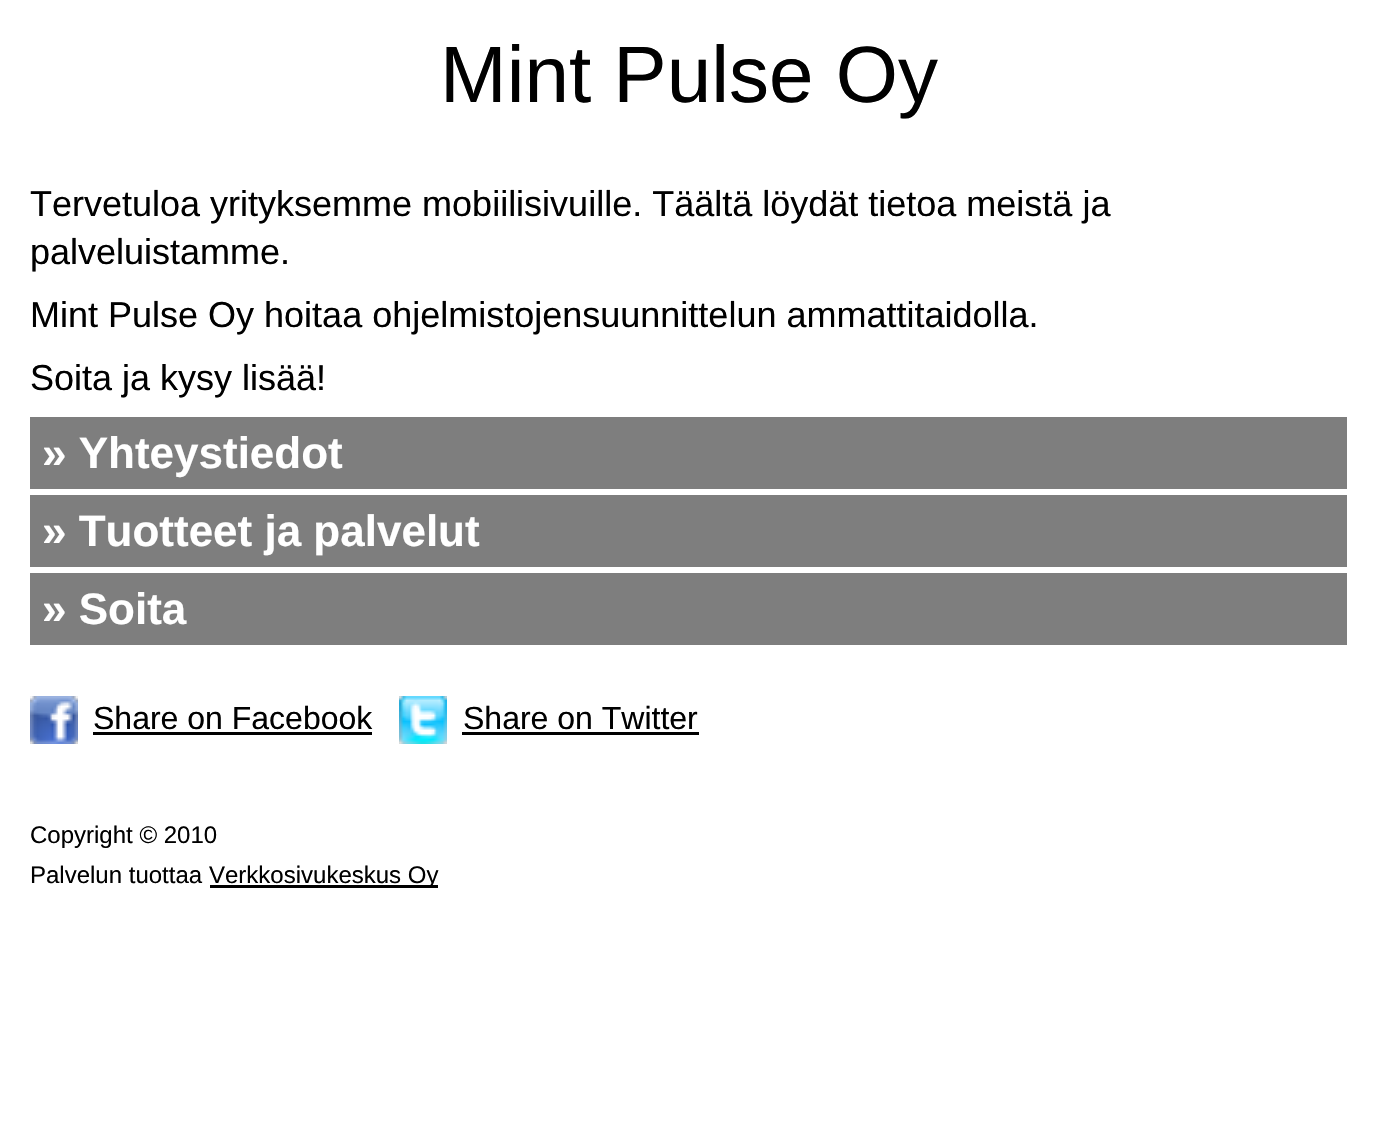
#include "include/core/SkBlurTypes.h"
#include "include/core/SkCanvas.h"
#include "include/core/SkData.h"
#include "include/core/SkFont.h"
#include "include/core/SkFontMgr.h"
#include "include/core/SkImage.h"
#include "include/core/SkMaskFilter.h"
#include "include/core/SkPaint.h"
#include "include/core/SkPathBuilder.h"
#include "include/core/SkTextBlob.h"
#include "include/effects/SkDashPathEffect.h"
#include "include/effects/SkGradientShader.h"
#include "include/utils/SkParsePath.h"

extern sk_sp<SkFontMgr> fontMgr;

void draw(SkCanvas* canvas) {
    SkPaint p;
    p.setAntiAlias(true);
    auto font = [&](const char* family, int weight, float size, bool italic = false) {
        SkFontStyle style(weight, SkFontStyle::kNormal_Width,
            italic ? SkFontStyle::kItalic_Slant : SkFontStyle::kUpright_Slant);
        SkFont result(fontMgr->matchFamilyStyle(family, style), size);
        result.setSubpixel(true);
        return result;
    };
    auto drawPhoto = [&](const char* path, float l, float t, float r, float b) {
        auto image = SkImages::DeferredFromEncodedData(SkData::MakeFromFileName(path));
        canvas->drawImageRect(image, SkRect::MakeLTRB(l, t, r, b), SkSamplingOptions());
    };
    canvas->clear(0xFFFFFFFF);
    auto font1 = font("Liberation Sans", 400, 80);
    p.setColor(0xFF000000);
    canvas->drawString("Mint Pulse Oy", 440, 102, font1, p);
    auto font2 = font("Liberation Sans", 400, 36);
    {
        const struct { const char* s; float x, y; } items[] = {
            {"Tervetuloa yrityksemme mobiilisivuille. Täältä löydät tietoa meistä ja", 30, 216},
            {"palveluistamme.", 30, 264},
            {"Mint Pulse Oy hoitaa ohjelmistojensuunnittelun ammattitaidolla.", 30, 327},
            {"Soita ja kysy lisää!", 30, 390},
        };
        for (auto [s, x, y] : items) {
            canvas->drawString(s, x, y, font2, p);
        }
    }
    p.setColor(0xFF7E7E7E);
    canvas->drawRect(SkRect::MakeLTRB(30, 417, 1347, 489), p);
    auto font3 = font("Liberation Sans", 700, 44);
    p.setColor(0xFFFFFFFF);
    canvas->drawString("» Yhteystiedot", 42, 468, font3, p);
    p.setColor(0xFF7E7E7E);
    canvas->drawRect(SkRect::MakeLTRB(30, 495, 1347, 567), p);
    p.setColor(0xFFFFFFFF);
    canvas->drawString("» Tuotteet ja palvelut", 42, 546, font3, p);
    p.setColor(0xFF7E7E7E);
    canvas->drawRect(SkRect::MakeLTRB(30, 573, 1347, 645), p);
    p.setColor(0xFFFFFFFF);
    canvas->drawString("» Soita", 42, 624, font3, p);
    drawPhoto("media/1.png", 30, 696, 78, 744);
    auto font4 = font("Liberation Sans", 400, 32);
    p.setColor(0xFF000000);
    canvas->drawString("Share on Facebook", 93, 729, font4, p);
    canvas->drawRect(SkRect::MakeLTRB(93, 732, 372, 735), p);
    drawPhoto("media/2.png", 399, 696, 447, 744);
    canvas->drawString("Share on Twitter", 463, 729, font4, p);
    canvas->drawRect(SkRect::MakeLTRB(462, 732, 699, 735), p);
    auto font5 = font("Liberation Sans", 400, 24);
    canvas->drawString("Copyright © 2010", 30, 843, font5, p);
    canvas->drawString("Palvelun tuottaa", 30, 883, font5, p);
    canvas->drawRect(SkRect::MakeLTRB(210, 885, 438, 888), p);
    canvas->drawString("Verkkosivukeskus Oy", 209, 883, font5, p);
}
